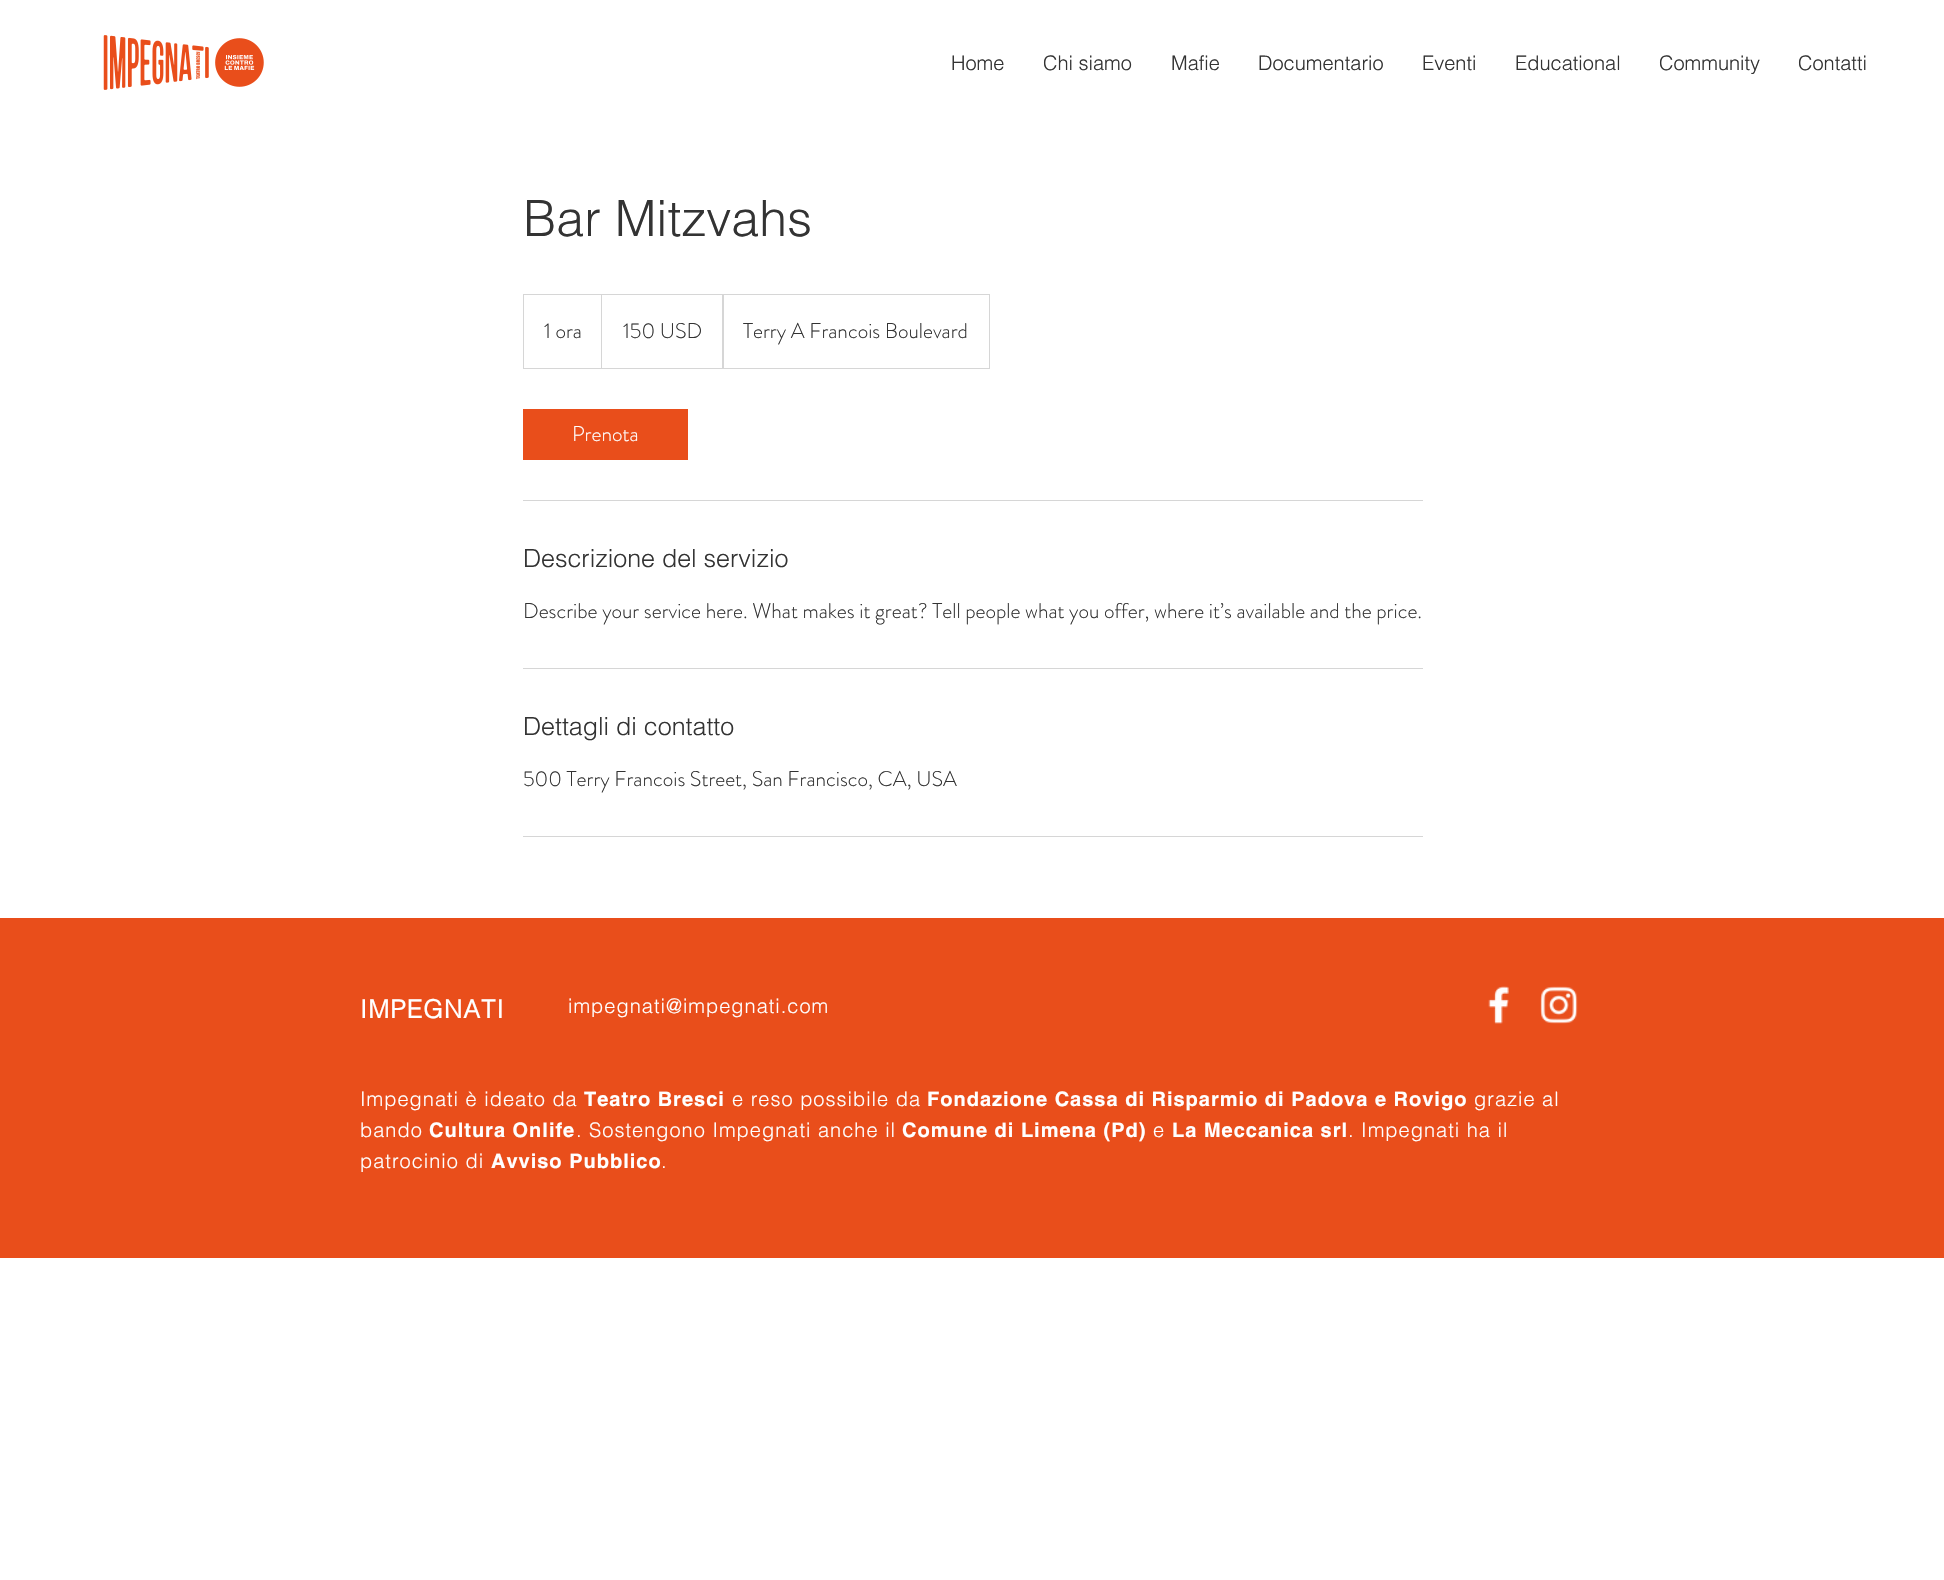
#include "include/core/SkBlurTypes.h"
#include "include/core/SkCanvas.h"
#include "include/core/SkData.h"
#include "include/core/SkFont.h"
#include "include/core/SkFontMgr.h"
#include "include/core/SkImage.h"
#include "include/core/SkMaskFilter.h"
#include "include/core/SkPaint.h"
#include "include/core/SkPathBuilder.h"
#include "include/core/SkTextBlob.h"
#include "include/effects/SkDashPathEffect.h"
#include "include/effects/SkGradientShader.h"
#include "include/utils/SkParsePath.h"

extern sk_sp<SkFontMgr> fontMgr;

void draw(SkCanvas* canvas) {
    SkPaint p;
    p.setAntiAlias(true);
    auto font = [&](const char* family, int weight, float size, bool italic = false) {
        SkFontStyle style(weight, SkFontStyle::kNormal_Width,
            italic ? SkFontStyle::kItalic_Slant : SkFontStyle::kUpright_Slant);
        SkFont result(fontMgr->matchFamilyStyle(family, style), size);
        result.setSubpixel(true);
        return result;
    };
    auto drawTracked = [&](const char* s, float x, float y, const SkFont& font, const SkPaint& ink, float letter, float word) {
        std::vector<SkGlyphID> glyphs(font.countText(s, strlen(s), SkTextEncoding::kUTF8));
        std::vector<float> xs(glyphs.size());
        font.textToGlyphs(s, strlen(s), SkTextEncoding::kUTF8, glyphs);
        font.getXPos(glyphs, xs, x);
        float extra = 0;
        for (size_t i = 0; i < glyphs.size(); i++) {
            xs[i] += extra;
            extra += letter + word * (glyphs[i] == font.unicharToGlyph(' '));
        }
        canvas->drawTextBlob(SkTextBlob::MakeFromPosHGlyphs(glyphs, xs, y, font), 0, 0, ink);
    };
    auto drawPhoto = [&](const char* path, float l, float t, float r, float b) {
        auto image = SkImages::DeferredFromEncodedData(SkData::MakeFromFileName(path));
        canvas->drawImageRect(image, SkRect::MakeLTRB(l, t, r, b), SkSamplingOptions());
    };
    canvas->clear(0xFFFFFFFF);
    drawPhoto("media/1.png", 103, 35, 264, 90);
    auto font1 = font("helvetica", 300, 20);
    p.setColor(0xFF333333);
    {
        const struct { const char* s; float x, y; } items[] = {
            {"Home", 951, 70},
            {"Chi siamo", 1043, 70},
            {"Mafie", 1171, 70},
            {"Documentario", 1258, 70},
            {"Eventi", 1422, 70},
            {"Educational", 1515, 70},
            {"Community", 1659, 70},
            {"Contatti", 1798, 70},
        };
        for (auto [s, x, y] : items) {
            canvas->drawString(s, x, y, font1, p);
        }
    }
    auto font2 = font("helvetica", 300, 50);
    canvas->drawString("Bar Mitzvahs", 523, 236, font2, p);
    p.setStyle(SkPaint::kStroke_Style);
    p.setStrokeWidth(1);
    p.setColor(0xFFD6D6D6);
    canvas->drawRect(SkRect::MakeLTRB(523.5f, 294.5f, 989.5f, 368.5f), p);
    auto font3 = font("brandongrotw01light", 300, 21.25f);
    p.setStyle(SkPaint::kFill_Style);
    p.setColor(0xFF333333);
    canvas->drawString("1 ora", 544, 338, font3, p);
    p.setColor(0xFFD6D6D6);
    canvas->drawPath(SkPathBuilder().moveTo(601, 368).lineTo(601, 294).lineTo(602, 295).lineTo(602, 368).close().detach(), p);
    p.setColor(0xFF333333);
    canvas->drawString("150 USD", 623, 338, font3, p);
    p.setColor(0xFFD6D6D6);
    canvas->drawPath(SkPathBuilder().moveTo(722, 368).lineTo(722, 294).lineTo(724, 295).lineTo(724, 368).close().detach(), p);
    p.setColor(0xFF333333);
    canvas->drawString("Terry A Francois Boulevard", 743, 338, font3, p);
    p.setColor(0xFFE94E1B);
    canvas->drawRect(SkRect::MakeLTRB(523, 409, 688, 460), p);
    p.setColor(0xFFFFFFFF);
    canvas->drawString("Prenota", 572, 441, font3, p);
    p.setColor(0xFFD6D6D6);
    canvas->drawRect(SkRect::MakeLTRB(523, 500, 1423, 501), p);
    auto font4 = font("helvetica", 300, 25);
    p.setColor(0xFF333333);
    canvas->drawString("Descrizione del servizio", 523, 567, font4, p);
    canvas->drawString("Describe your service here. What makes it great? Tell people what you offer, where it’s available and the price.", 523, 618, font3, p);
    p.setColor(0xFFD6D6D6);
    canvas->drawRect(SkRect::MakeLTRB(523, 668, 1423, 669), p);
    p.setColor(0xFF333333);
    canvas->drawString("Dettagli di contatto", 523, 735, font4, p);
    canvas->drawString("500 Terry Francois Street, San Francisco, CA, USA", 523, 786, font3, p);
    p.setColor(0xFFD6D6D6);
    canvas->drawRect(SkRect::MakeLTRB(523, 836, 1423, 837), p);
    p.setColor(0xFFE94E1B);
    canvas->drawRect(SkRect::MakeLTRB(0, 918, 1944, 1258), p);
    auto font5 = font("helvetica", 700, 25);
    p.setColor(0xFFFFFFFF);
    drawTracked("IMPEGNATI", 360, 1018, font5, p, 1.25f, 0);
    drawTracked("impegnati@impegnati.com", 568, 1013, font1, p, 1, 0);
    drawPhoto("media/2.png", 1488, 986, 1509, 1024);
    drawPhoto("media/3.png", 1540, 986, 1578, 1024);
    drawTracked("Impegnati è ideato da", 360, 1106, font1, p, 1, 0);
    auto font6 = font("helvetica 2", 700, 20);
    drawTracked("Teatro Bresci", 584, 1106, font6, p, 1, 0);
    drawTracked("e reso possibile da", 732, 1106, font1, p, 1, 0);
    drawTracked("Fondazione Cassa di Risparmio di Padova e Rovigo", 927, 1106, font6, p, 1, 0);
    drawTracked("grazie al", 1474, 1106, font1, p, 1, 0);
    drawTracked("bando", 360, 1137, font1, p, 1, 0);
    drawTracked("Cultura Onlife", 429, 1137, font6, p, 1, 0);
    drawTracked(". Sostengono Impegnati anche il", 576, 1137, font1, p, 1, 0);
    drawTracked("Comune di Limena (Pd)", 902, 1137, font6, p, 1, 0);
    drawTracked("e", 1153, 1137, font1, p, 1, 0);
    drawTracked("La Meccanica srl", 1172, 1137, font6, p, 1, 0);
    drawTracked(". Impegnati ha il", 1348, 1137, font1, p, 1, 0);
    drawTracked("patrocinio di", 360, 1168, font1, p, 1, 0);
    drawTracked("Avviso Pubblico", 491, 1168, font6, p, 1, 0);
    drawTracked(".", 661, 1168, font1, p, 1, 0);
}
